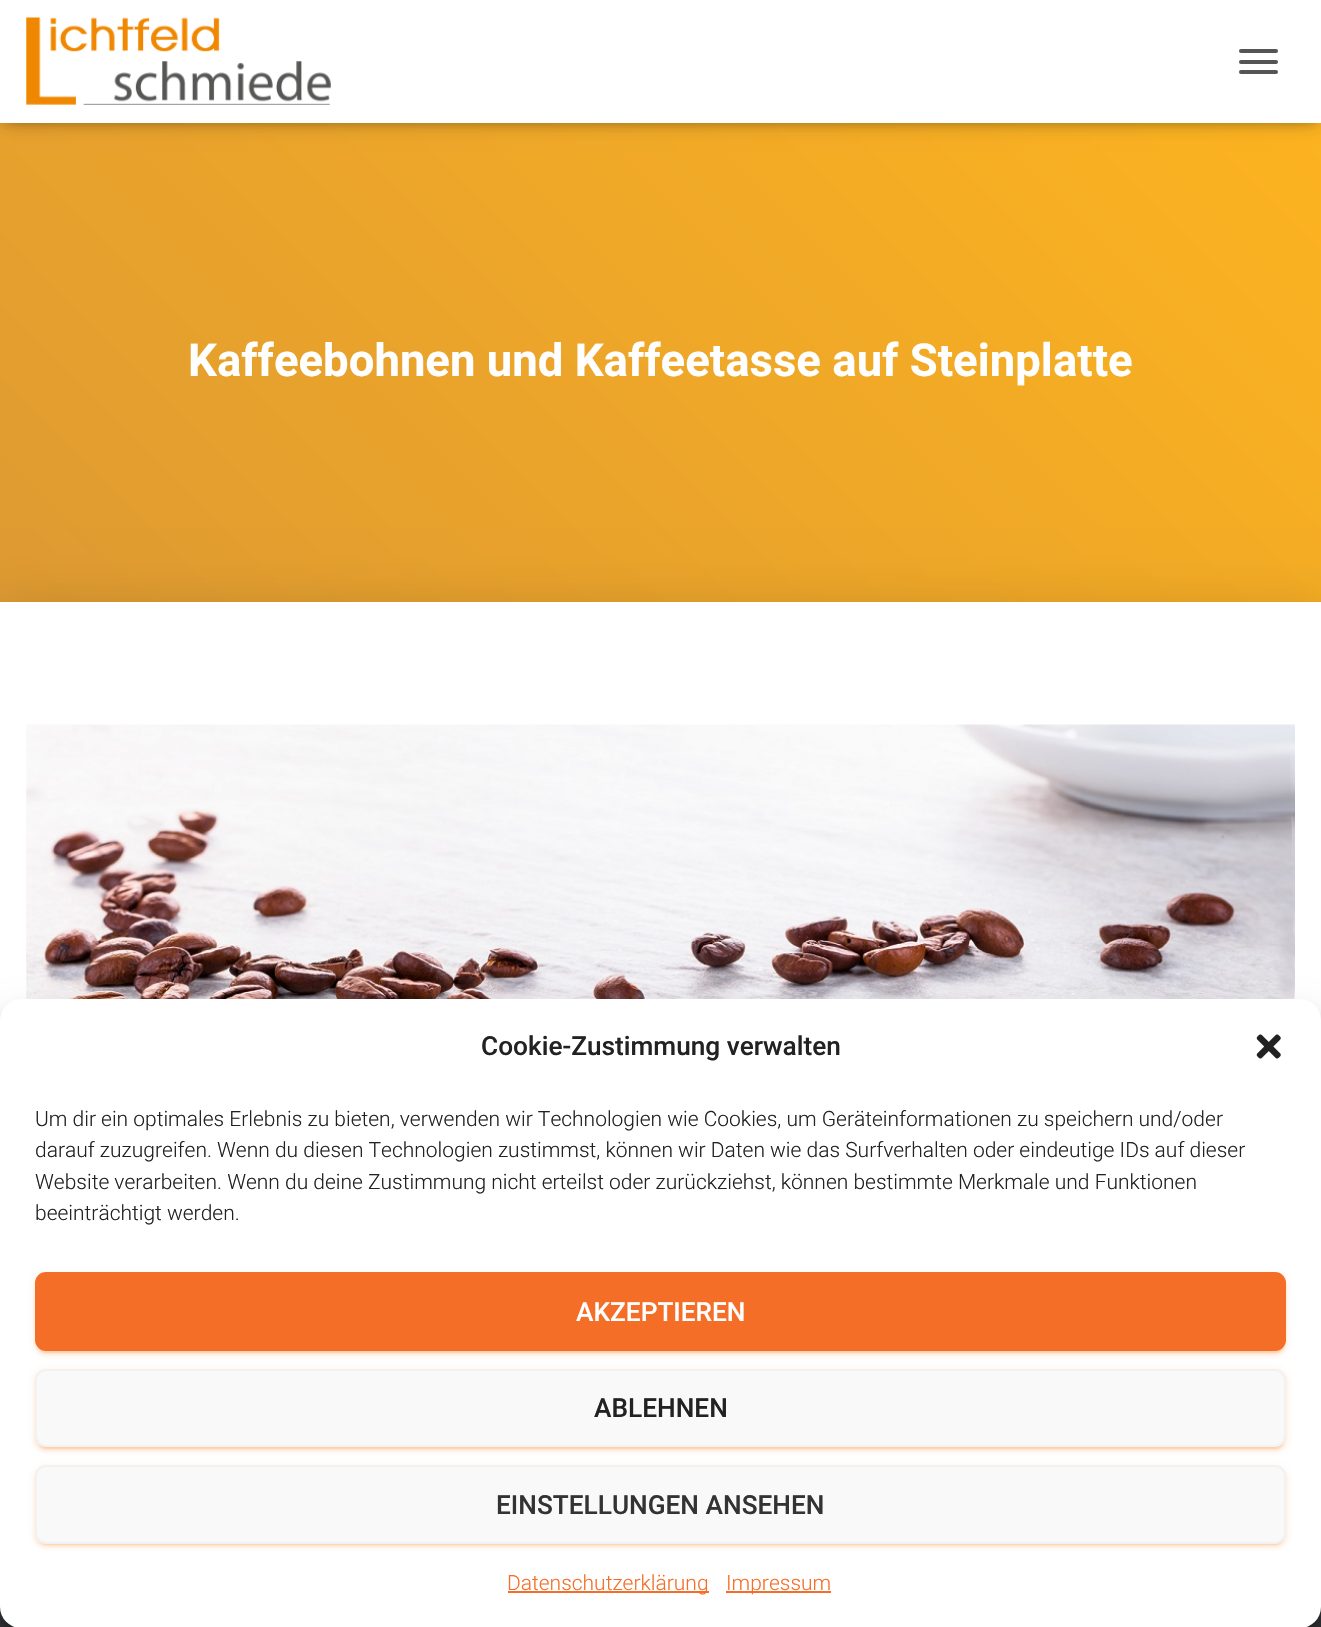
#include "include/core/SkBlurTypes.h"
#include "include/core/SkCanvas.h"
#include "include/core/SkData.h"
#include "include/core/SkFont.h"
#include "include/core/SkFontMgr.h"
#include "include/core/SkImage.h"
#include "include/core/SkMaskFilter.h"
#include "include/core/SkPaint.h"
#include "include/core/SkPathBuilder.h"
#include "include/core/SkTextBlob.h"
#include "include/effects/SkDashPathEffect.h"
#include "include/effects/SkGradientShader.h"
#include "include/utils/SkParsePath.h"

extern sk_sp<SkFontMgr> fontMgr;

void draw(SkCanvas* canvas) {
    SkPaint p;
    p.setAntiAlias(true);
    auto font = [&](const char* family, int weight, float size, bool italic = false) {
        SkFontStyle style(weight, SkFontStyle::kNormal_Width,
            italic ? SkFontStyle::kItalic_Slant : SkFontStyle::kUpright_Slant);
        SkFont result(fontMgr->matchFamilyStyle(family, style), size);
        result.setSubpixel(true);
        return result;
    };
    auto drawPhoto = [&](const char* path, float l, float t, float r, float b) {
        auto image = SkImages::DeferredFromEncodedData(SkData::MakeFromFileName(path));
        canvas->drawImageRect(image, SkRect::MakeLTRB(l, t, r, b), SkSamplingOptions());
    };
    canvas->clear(0xFF323437);
    {
        const SkColor colors[] = {0xFFDD9933, 0xFFFFB51E};
        const float stops[] = {0, 1};
        const SkPoint ends[] = {{148, 855}, {1173, -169}};
        p.setShader(SkGradientShader::MakeLinear(ends, colors, stops, 2, SkTileMode::kClamp));
        p.setAlpha(255);
    }
    canvas->drawRect(SkRect::MakeLTRB(0, 123, 1321, 602), p);
    p.setShader(nullptr);
    p.setColor(0x1A000000);
    p.setMaskFilter(SkMaskFilter::MakeBlur(kNormal_SkBlurStyle, 4.5f));
    canvas->drawRect(SkRect::MakeLTRB(4, 11, 1318, 126), p);
    p.setMaskFilter(nullptr);
    p.setColor(0x1F000000);
    p.setMaskFilter(SkMaskFilter::MakeBlur(kNormal_SkBlurStyle, 9));
    canvas->drawRect(SkRect::MakeLTRB(0, 2, 1321, 124), p);
    p.setMaskFilter(nullptr);
    p.setColor(0x6B000000);
    p.setMaskFilter(SkMaskFilter::MakeBlur(kNormal_SkBlurStyle, 9));
    canvas->drawRect(SkRect::MakeLTRB(11, 12, 1311, 114), p);
    p.setMaskFilter(nullptr);
    p.setColor(0xFFFFFFFF);
    canvas->drawRect(SkRect::MakeLTRB(0, 0, 1321, 123), p);
    drawPhoto("media/1.png", 26, 17, 331, 105);
    p.setColor(0xFF555555);
    canvas->drawRoundRect(SkRect::MakeLTRB(1239, 49, 1278, 53), 2, 2, p);
    canvas->drawRoundRect(SkRect::MakeLTRB(1239, 60, 1278, 64), 2, 2, p);
    canvas->drawRoundRect(SkRect::MakeLTRB(1239, 70, 1278, 74), 2, 2, p);
    auto font1 = font("Roboto", 700, 45.5f);
    p.setColor(0xFFFFFFFF);
    canvas->drawString("Kaffeebohnen und Kaffeetasse auf Steinplatte", 188, 376, font1, p);
    p.setColor(0x1F000000);
    p.setMaskFilter(SkMaskFilter::MakeBlur(kNormal_SkBlurStyle, 26));
    canvas->drawRect(SkRect::MakeLTRB(-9, 604, 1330, 1423), p);
    p.setMaskFilter(nullptr);
    p.setColor(0xFFFFFFFF);
    canvas->drawRect(SkRect::MakeLTRB(0, 602, 1321, 1020), p);
    drawPhoto("media/2.png", 26, 724, 1295, 999);
    p.setColor(0x3B000000);
    p.setMaskFilter(SkMaskFilter::MakeBlur(kNormal_SkBlurStyle, 5));
    canvas->drawRoundRect(SkRect::MakeLTRB(0, 1010, 1321, 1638), 21, 21, p);
    p.setMaskFilter(nullptr);
    p.setColor(0x30000000);
    p.setMaskFilter(SkMaskFilter::MakeBlur(kNormal_SkBlurStyle, 17.5f));
    canvas->drawRoundRect(SkRect::MakeLTRB(0, 1017, 1321, 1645), 21, 21, p);
    p.setMaskFilter(nullptr);
    p.setColor(0xFFFFFFFF);
    canvas->drawRoundRect(SkRect::MakeLTRB(0, 999, 1321, 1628), 21, 21, p);
    auto font2 = font("Roboto", 500, 26.25f);
    p.setColor(0xFF222222);
    canvas->drawString("Cookie-Zustimmung verwalten", 481, 1055, font2, p);
    drawPhoto("media/3.png", 1256, 1034, 1281, 1059);
    auto font3 = font("Roboto", 300, 21);
    {
        const struct { const char* s; float x, y; } items[] = {
            {"Um dir ein optimales Erlebnis zu bieten, verwenden wir Technologien wie Cookies, um Geräteinformationen zu speichern und/oder", 35, 1126},
            {"darauf zuzugreifen. Wenn du diesen Technologien zustimmst, können wir Daten wie das Surfverhalten oder eindeutige IDs auf dieser", 35, 1157},
            {"Website verarbeiten. Wenn du deine Zustimmung nicht erteilst oder zurückziehst, können bestimmte Merkmale und Funktionen", 35, 1189},
            {"beeinträchtigt werden.", 35, 1220},
        };
        for (auto [s, x, y] : items) {
            canvas->drawString(s, x, y, font3, p);
        }
    }
    p.setColor(0x1FFC7814);
    p.setMaskFilter(SkMaskFilter::MakeBlur(kNormal_SkBlurStyle, 4.5f));
    canvas->drawRoundRect(SkRect::MakeLTRB(35, 1274, 1286, 1353), 11, 11, p);
    p.setMaskFilter(nullptr);
    p.setColor(0x33FC7814);
    p.setMaskFilter(SkMaskFilter::MakeBlur(kNormal_SkBlurStyle, 1));
    canvas->drawRoundRect(SkRect::MakeLTRB(39, 1281, 1283, 1353), 7, 7, p);
    p.setMaskFilter(nullptr);
    p.setColor(0x24FC7814);
    p.setMaskFilter(SkMaskFilter::MakeBlur(kNormal_SkBlurStyle, 2));
    canvas->drawRoundRect(SkRect::MakeLTRB(35, 1276, 1286, 1355), 11, 11, p);
    p.setMaskFilter(nullptr);
    p.setColor(0xFFF56E28);
    canvas->drawRoundRect(SkRect::MakeLTRB(36, 1273, 1285, 1350), 10, 10, p);
    p.setStyle(SkPaint::kStroke_Style);
    p.setStrokeWidth(2);
    canvas->drawRoundRect(SkRect::MakeLTRB(36, 1273, 1285, 1350), 10, 10, p);
    p.setStyle(SkPaint::kFill_Style);
    p.setColor(0xFFFFFFFF);
    canvas->drawString("AKZEPTIEREN", 576, 1321, font2, p);
    p.setColor(0x1FFC7814);
    p.setMaskFilter(SkMaskFilter::MakeBlur(kNormal_SkBlurStyle, 4.5f));
    canvas->drawRoundRect(SkRect::MakeLTRB(35, 1370, 1286, 1449), 11, 11, p);
    p.setMaskFilter(nullptr);
    p.setColor(0x33FC7814);
    p.setMaskFilter(SkMaskFilter::MakeBlur(kNormal_SkBlurStyle, 1));
    canvas->drawRoundRect(SkRect::MakeLTRB(39, 1377, 1283, 1449), 7, 7, p);
    p.setMaskFilter(nullptr);
    p.setColor(0x24FC7814);
    p.setMaskFilter(SkMaskFilter::MakeBlur(kNormal_SkBlurStyle, 2));
    canvas->drawRoundRect(SkRect::MakeLTRB(35, 1372, 1286, 1451), 11, 11, p);
    p.setMaskFilter(nullptr);
    p.setColor(0xFFF9F9F9);
    canvas->drawRoundRect(SkRect::MakeLTRB(36, 1370, 1285, 1446), 10, 10, p);
    p.setStyle(SkPaint::kStroke_Style);
    p.setColor(0xFFF2F2F2);
    canvas->drawRoundRect(SkRect::MakeLTRB(36, 1370, 1285, 1446), 10, 10, p);
    p.setStyle(SkPaint::kFill_Style);
    p.setColor(0xFF222222);
    canvas->drawString("ABLEHNEN", 594, 1417, font2, p);
    p.setColor(0x1FFC7814);
    p.setMaskFilter(SkMaskFilter::MakeBlur(kNormal_SkBlurStyle, 4.5f));
    canvas->drawRoundRect(SkRect::MakeLTRB(35, 1467, 1286, 1545), 11, 11, p);
    p.setMaskFilter(nullptr);
    p.setColor(0x33FC7814);
    p.setMaskFilter(SkMaskFilter::MakeBlur(kNormal_SkBlurStyle, 1));
    canvas->drawRoundRect(SkRect::MakeLTRB(39, 1474, 1283, 1545), 7, 7, p);
    p.setMaskFilter(nullptr);
    p.setColor(0x24FC7814);
    p.setMaskFilter(SkMaskFilter::MakeBlur(kNormal_SkBlurStyle, 2));
    canvas->drawRoundRect(SkRect::MakeLTRB(35, 1468, 1286, 1547), 11, 11, p);
    p.setMaskFilter(nullptr);
    p.setColor(0xFFF9F9F9);
    canvas->drawRoundRect(SkRect::MakeLTRB(36, 1466, 1285, 1543), 10, 10, p);
    p.setStyle(SkPaint::kStroke_Style);
    p.setColor(0xFFF2F2F2);
    canvas->drawRoundRect(SkRect::MakeLTRB(36, 1466, 1285, 1543), 10, 10, p);
    p.setStyle(SkPaint::kFill_Style);
    p.setColor(0xFF333333);
    canvas->drawString("EINSTELLUNGEN ANSEHEN", 496, 1514, font2, p);
    p.setColor(0xFFF56E28);
    canvas->drawRect(SkRect::MakeLTRB(508, 1591, 709, 1593), p);
    canvas->drawString("Datenschutzerklärung", 507, 1590, font3, p);
    canvas->drawRect(SkRect::MakeLTRB(726, 1591, 831, 1593), p);
    canvas->drawString("Impressum", 726, 1590, font3, p);
}
